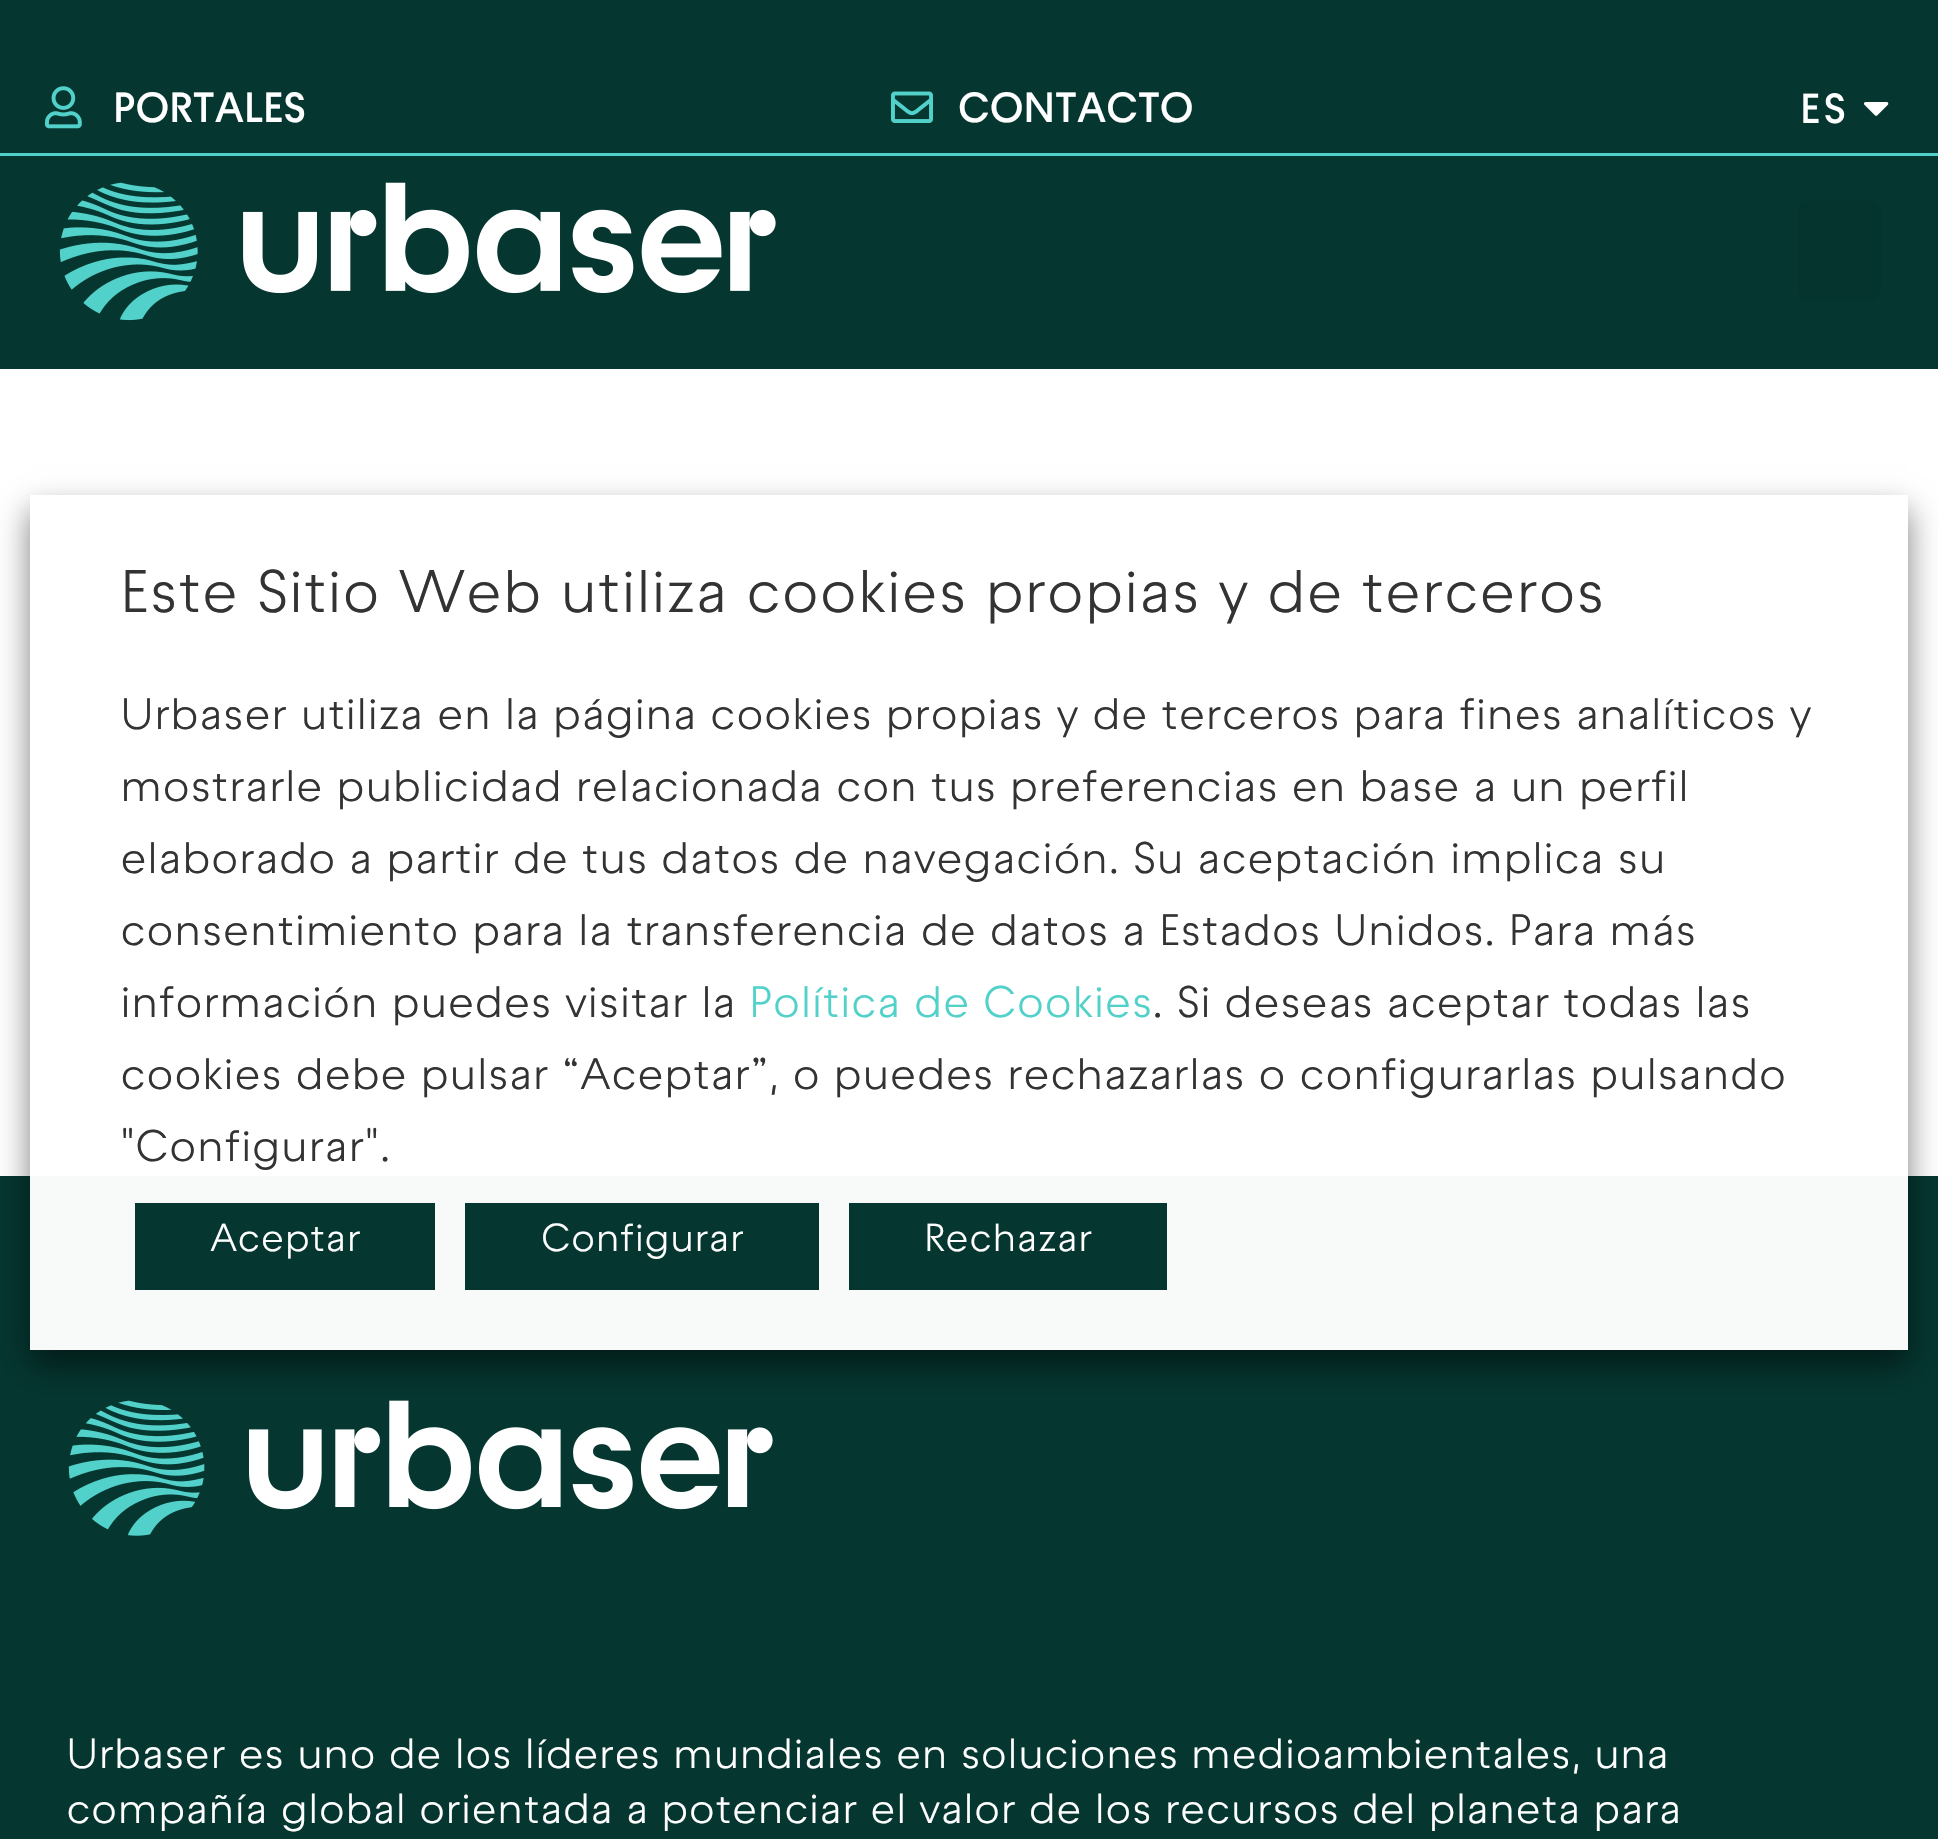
#include "include/core/SkBlurTypes.h"
#include "include/core/SkCanvas.h"
#include "include/core/SkData.h"
#include "include/core/SkFont.h"
#include "include/core/SkFontMgr.h"
#include "include/core/SkImage.h"
#include "include/core/SkMaskFilter.h"
#include "include/core/SkPaint.h"
#include "include/core/SkPathBuilder.h"
#include "include/core/SkTextBlob.h"
#include "include/effects/SkDashPathEffect.h"
#include "include/effects/SkGradientShader.h"
#include "include/utils/SkParsePath.h"

extern sk_sp<SkFontMgr> fontMgr;

void draw(SkCanvas* canvas) {
    SkPaint p;
    p.setAntiAlias(true);
    auto font = [&](const char* family, int weight, float size, bool italic = false) {
        SkFontStyle style(weight, SkFontStyle::kNormal_Width,
            italic ? SkFontStyle::kItalic_Slant : SkFontStyle::kUpright_Slant);
        SkFont result(fontMgr->matchFamilyStyle(family, style), size);
        result.setSubpixel(true);
        return result;
    };
    auto drawTracked = [&](const char* s, float x, float y, const SkFont& font, const SkPaint& ink, float letter, float word) {
        std::vector<SkGlyphID> glyphs(font.countText(s, strlen(s), SkTextEncoding::kUTF8));
        std::vector<float> xs(glyphs.size());
        font.textToGlyphs(s, strlen(s), SkTextEncoding::kUTF8, glyphs);
        font.getXPos(glyphs, xs, x);
        float extra = 0;
        for (size_t i = 0; i < glyphs.size(); i++) {
            xs[i] += extra;
            extra += letter + word * (glyphs[i] == font.unicharToGlyph(' '));
        }
        canvas->drawTextBlob(SkTextBlob::MakeFromPosHGlyphs(glyphs, xs, y, font), 0, 0, ink);
    };
    auto drawPhoto = [&](const char* path, float l, float t, float r, float b) {
        auto image = SkImages::DeferredFromEncodedData(SkData::MakeFromFileName(path));
        canvas->drawImageRect(image, SkRect::MakeLTRB(l, t, r, b), SkSamplingOptions());
    };
    canvas->clear(0xFFFFFFFF);
    p.setColor(0xFF053630);
    canvas->drawRect(SkRect::MakeLTRB(0, 0, 1938, 153), p);
    p.setColor(0xFF51D1C9);
    canvas->drawRect(SkRect::MakeLTRB(0, 153, 1938, 156), p);
    drawPhoto("media/1.png", 45, 86, 82, 129);
    auto font1 = font("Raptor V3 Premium", 600, 42);
    p.setColor(0xFFFFFFFF);
    canvas->drawString("PORTALES", 113, 122, font1, p);
    drawPhoto("media/2.png", 891, 91, 933, 123);
    canvas->drawString("CONTACTO", 958, 122, font1, p);
    drawPhoto("media/3.png", 1803, 93, 1845, 124);
    drawPhoto("media/4.png", 1864, 102, 1889, 116);
    p.setColor(0xFF053630);
    canvas->drawRect(SkRect::MakeLTRB(0, 156, 1938, 369), p);
    drawPhoto("media/5.png", 59, 182, 776, 321);
    p.setColor(0xFF05332E);
    canvas->drawRoundRect(SkRect::MakeLTRB(1797, 201, 1881, 300), 9, 9, p);
    p.setColor(0xFF053630);
    canvas->drawRect(SkRect::MakeLTRB(0, 1176, 1938, 1839), p);
    drawPhoto("media/6.png", 68, 1400, 773, 1536);
    canvas->save();
    canvas->clipPath(SkPathBuilder(SkPathFillType::kEvenOdd).moveTo(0, 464).lineTo(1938, 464).lineTo(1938, 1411).lineTo(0, 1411).close().moveTo(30, 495).lineTo(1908, 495).lineTo(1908, 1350).lineTo(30, 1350).close().detach(), true);
    p.setColor(0x80000000);
    p.setMaskFilter(SkMaskFilter::MakeBlur(kNormal_SkBlurStyle, 15));
    canvas->drawRect(SkRect::MakeLTRB(30, 510, 1908, 1365), p);
    p.setMaskFilter(nullptr);
    canvas->restore();
    p.setColor(0xF7FFFFFF);
    canvas->drawRect(SkRect::MakeLTRB(30, 1176, 1908, 1350), p);
    auto font2 = font("Raptor V3 Premium", 400, 60);
    p.setColor(0xFF333333);
    canvas->drawString("Este Sitio Web utiliza cookies propias y de terceros", 120, 612, font2, p);
    auto font3 = font("Raptor V3 Premium", 400, 44);
    {
        const struct { const char* s; float x, y; } items[] = {
            {"Urbaser utiliza en la página cookies propias y de terceros para fines analíticos y", 120, 729},
            {"mostrarle publicidad relacionada con tus preferencias en base a un perfil", 120, 801},
            {"elaborado a partir de tus datos de navegación. Su aceptación implica su", 120, 873},
            {"consentimiento para la transferencia de datos a Estados Unidos. Para más", 120, 945},
            {"información puedes visitar la", 120, 1017},
        };
        for (auto [s, x, y] : items) {
            canvas->drawString(s, x, y, font3, p);
        }
    }
    p.setColor(0xFF51D1C9);
    canvas->drawString("Política de Cookies", 749, 1017, font3, p);
    p.setColor(0xFF333333);
    canvas->drawString(". Si deseas aceptar todas las", 1152, 1017, font3, p);
    drawTracked("cookies debe pulsar “Aceptar”, o puedes rechazarlas o configurarlas pulsando", 120, 1089, font3, p, 0, -0.1f);
    canvas->drawString("\"Configurar\".", 120, 1161, font3, p);
    p.setColor(0xFF053630);
    canvas->drawRect(SkRect::MakeLTRB(135, 1203, 435, 1290), p);
    auto font4 = font("Raptor V3 Premium", 400, 39);
    p.setColor(0xFFFFFFFF);
    canvas->drawString("Aceptar", 210, 1251, font4, p);
    p.setColor(0xFF053630);
    canvas->drawRect(SkRect::MakeLTRB(465, 1203, 819, 1290), p);
    p.setColor(0xFFFFFFFF);
    canvas->drawString("Configurar", 541, 1251, font4, p);
    p.setColor(0xFF053630);
    canvas->drawRect(SkRect::MakeLTRB(849, 1203, 1167, 1290), p);
    p.setColor(0xFFFFFFFF);
    canvas->drawString("Rechazar", 924, 1251, font4, p);
    auto font5 = font("Raptor V3 Premium", 400, 42);
    canvas->drawString("Urbaser es uno de los líderes mundiales en soluciones medioambientales, una", 66, 1768, font5, p);
    canvas->drawString("compañía global orientada a potenciar el valor de los recursos del planeta para", 66, 1823, font5, p);
}
